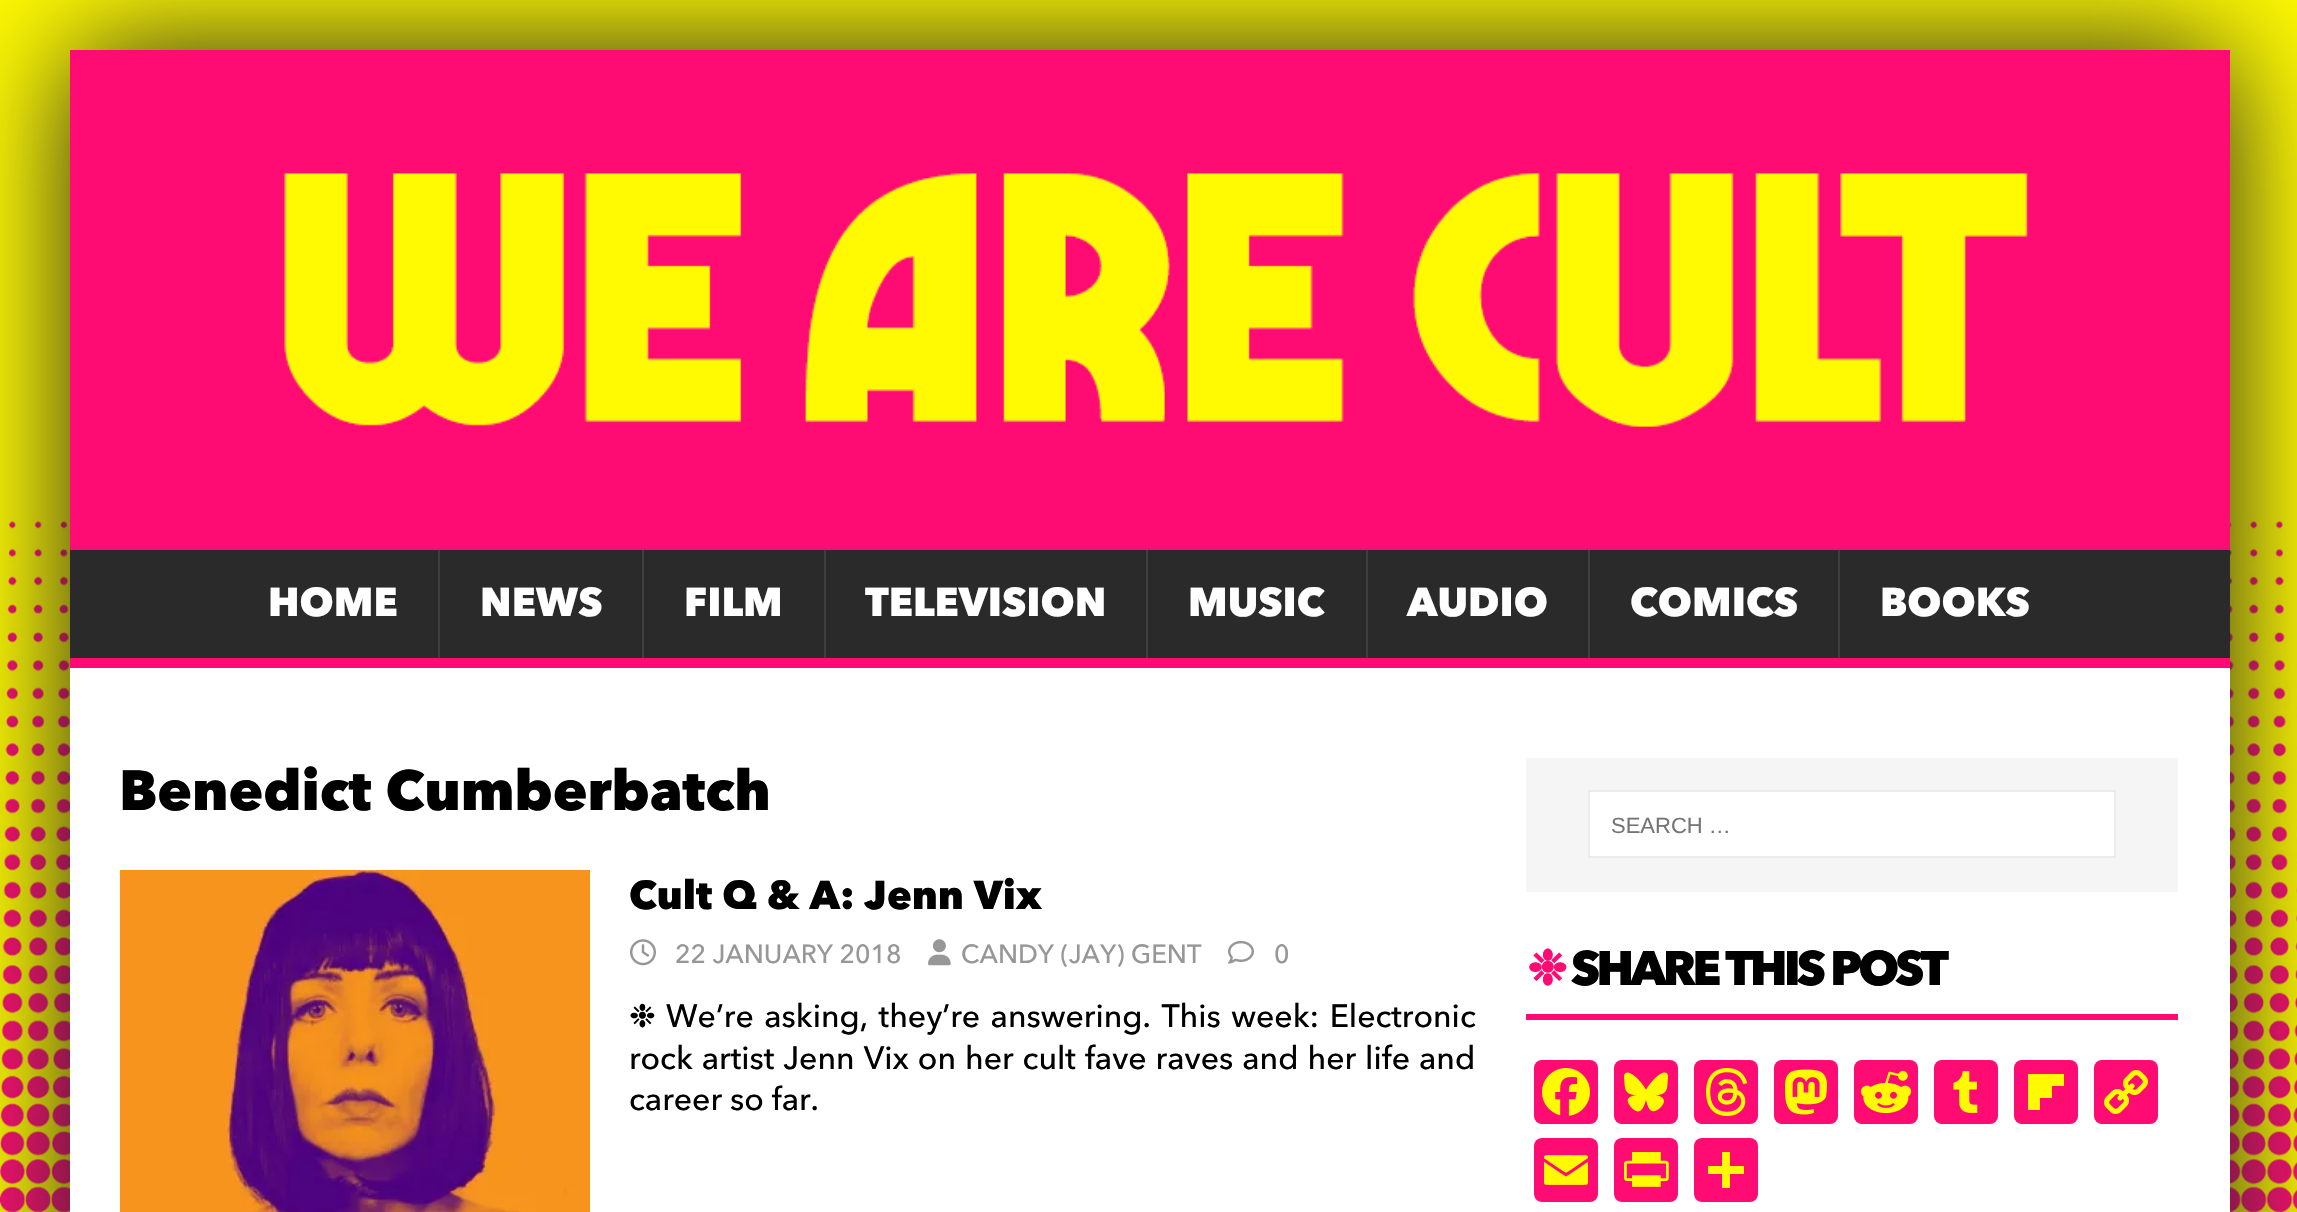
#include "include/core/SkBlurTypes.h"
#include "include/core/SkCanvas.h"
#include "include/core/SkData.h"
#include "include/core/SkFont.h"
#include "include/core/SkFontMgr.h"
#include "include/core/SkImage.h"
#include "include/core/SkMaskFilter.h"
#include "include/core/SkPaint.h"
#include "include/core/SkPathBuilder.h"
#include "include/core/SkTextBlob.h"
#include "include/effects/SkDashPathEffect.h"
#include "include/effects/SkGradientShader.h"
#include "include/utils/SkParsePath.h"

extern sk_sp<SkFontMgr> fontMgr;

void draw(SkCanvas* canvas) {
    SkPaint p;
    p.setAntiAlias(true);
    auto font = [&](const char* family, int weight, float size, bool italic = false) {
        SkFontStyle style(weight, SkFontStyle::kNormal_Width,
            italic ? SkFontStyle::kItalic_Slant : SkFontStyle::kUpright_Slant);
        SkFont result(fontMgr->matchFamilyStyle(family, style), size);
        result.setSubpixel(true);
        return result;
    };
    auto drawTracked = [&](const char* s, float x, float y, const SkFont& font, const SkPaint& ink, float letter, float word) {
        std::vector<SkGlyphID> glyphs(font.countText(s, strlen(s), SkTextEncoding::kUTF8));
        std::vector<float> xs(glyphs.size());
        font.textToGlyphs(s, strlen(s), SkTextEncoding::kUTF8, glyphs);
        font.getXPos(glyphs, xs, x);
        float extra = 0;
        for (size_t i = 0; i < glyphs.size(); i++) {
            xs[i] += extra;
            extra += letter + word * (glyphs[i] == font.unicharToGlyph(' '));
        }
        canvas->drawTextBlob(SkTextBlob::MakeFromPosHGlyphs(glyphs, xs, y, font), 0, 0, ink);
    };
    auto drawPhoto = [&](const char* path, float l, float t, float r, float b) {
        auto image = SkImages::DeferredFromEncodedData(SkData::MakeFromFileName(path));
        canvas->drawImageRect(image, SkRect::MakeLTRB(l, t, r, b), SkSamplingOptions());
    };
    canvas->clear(0xFFFFFFFF);
    drawPhoto("media/1.png", 0, 0, 2297, 1212);
    p.setColor(0xFF222222);
    p.setMaskFilter(SkMaskFilter::MakeBlur(kNormal_SkBlurStyle, 60));
    canvas->drawRect(SkRect::MakeLTRB(70, 50, 2230, 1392), p);
    p.setMaskFilter(nullptr);
    drawPhoto("media/2.png", 70, 50, 2230, 550);
    p.setColor(0xFF2A2A2A);
    canvas->drawRect(SkRect::MakeLTRB(70, 550, 2230, 658), p);
    p.setColor(0xFFFE0C73);
    canvas->drawRect(SkRect::MakeLTRB(70, 658, 2230, 668), p);
    auto font1 = font("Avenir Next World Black", 900, 40);
    p.setColor(0xFFFFFFFF);
    canvas->drawString("HOME", 268, 616, font1, p);
    p.setColor(0xFF3F3F3F);
    canvas->drawRect(SkRect::MakeLTRB(438, 550, 440, 658), p);
    p.setColor(0xFFFFFFFF);
    canvas->drawString("NEWS", 480, 616, font1, p);
    p.setColor(0xFF3F3F3F);
    canvas->drawRect(SkRect::MakeLTRB(642, 550, 644, 658), p);
    p.setColor(0xFFFFFFFF);
    canvas->drawString("FILM", 684, 616, font1, p);
    p.setColor(0xFF3F3F3F);
    canvas->drawRect(SkRect::MakeLTRB(824, 550, 826, 658), p);
    p.setColor(0xFFFFFFFF);
    canvas->drawString("TELEVISION", 865, 616, font1, p);
    p.setColor(0xFF3F3F3F);
    canvas->drawRect(SkRect::MakeLTRB(1146, 550, 1148, 658), p);
    p.setColor(0xFFFFFFFF);
    canvas->drawString("MUSIC", 1188, 616, font1, p);
    p.setColor(0xFF3F3F3F);
    canvas->drawRect(SkRect::MakeLTRB(1366, 550, 1368, 658), p);
    p.setColor(0xFFFFFFFF);
    canvas->drawString("AUDIO", 1407, 616, font1, p);
    p.setColor(0xFF3F3F3F);
    canvas->drawRect(SkRect::MakeLTRB(1588, 550, 1590, 658), p);
    p.setColor(0xFFFFFFFF);
    canvas->drawString("COMICS", 1630, 616, font1, p);
    p.setColor(0xFF3F3F3F);
    canvas->drawRect(SkRect::MakeLTRB(1838, 550, 1840, 658), p);
    p.setColor(0xFFFFFFFF);
    canvas->drawString("BOOKS", 1880, 616, font1, p);
    canvas->drawRect(SkRect::MakeLTRB(70, 668, 2230, 1212), p);
    auto font2 = font("Avenir Next World Black", 900, 56);
    p.setColor(0xFF000000);
    canvas->drawString("Benedict Cumberbatch", 119, 810, font2, p);
    drawPhoto("media/3.png", 120, 870, 590, 1212);
    canvas->drawString("Cult Q & A: Jenn Vix", 629, 909, font1, p);
    drawPhoto("media/4.png", 630, 939, 656, 966);
    auto font3 = font("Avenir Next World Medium", 500, 26);
    p.setColor(0xFF979797);
    canvas->drawString("22 JANUARY 2018", 675, 963, font3, p);
    drawPhoto("media/5.png", 928, 939, 951, 966);
    canvas->drawString("CANDY (JAY) GENT", 961, 963, font3, p);
    drawPhoto("media/6.png", 1228, 940, 1254, 964);
    canvas->drawString("0", 1274, 963, font3, p);
    auto font4 = font("DejaVu Sans", 400, 32);
    p.setColor(0xFF000000);
    canvas->drawString("❉", 629, 1027, font4, p);
    auto font5 = font("Avenir Next World Medium", 500, 32);
    drawTracked("We’re asking, they’re answering. This week: Electronic", 666, 1027, font5, p, 0, 2.5f);
    drawTracked("rock artist Jenn Vix on her cult fave raves and her life and", 629, 1069, font5, p, 0, 1);
    canvas->drawString("career so far.", 629, 1110, font5, p);
    p.setColor(0xFFF5F5F5);
    canvas->drawRect(SkRect::MakeLTRB(1526, 758, 2178, 892), p);
    p.setColor(0xFFFFFFFF);
    canvas->drawRect(SkRect::MakeLTRB(1589, 791, 2115, 857), p);
    p.setStyle(SkPaint::kStroke_Style);
    p.setStrokeWidth(2);
    p.setColor(0xFFEBEBEB);
    canvas->drawRect(SkRect::MakeLTRB(1589, 791, 2115, 857), p);
    auto font6 = font("Liberation Sans", 400, 22);
    p.setStyle(SkPaint::kFill_Style);
    p.setColor(0xFF757575);
    canvas->drawString("SEARCH …", 1611, 833, font6, p);
    p.setColor(0xFFFE0C73);
    canvas->drawRect(SkRect::MakeLTRB(1526, 1014, 2178, 1020), p);
    auto font7 = font("DejaVu Sans", 700, 48);
    drawTracked("❉", 1527, 985, font7, p, -4, 0);
    auto font8 = font("Avenir Next World Black", 900, 48);
    p.setColor(0xFF000000);
    drawTracked("SHARE THIS POST", 1571, 985, font8, p, -4, 0);
    p.setColor(0xFFFE0C73);
    canvas->drawRoundRect(SkRect::MakeLTRB(1534, 1060, 1598, 1124), 8, 8, p);
    drawPhoto("media/7.png", 1542, 1068, 1590, 1116);
    canvas->drawRoundRect(SkRect::MakeLTRB(1614, 1060, 1678, 1124), 8, 8, p);
    drawPhoto("media/8.png", 1624, 1072, 1668, 1112);
    canvas->drawRoundRect(SkRect::MakeLTRB(1694, 1060, 1758, 1124), 8, 8, p);
    drawPhoto("media/9.png", 1706, 1068, 1748, 1116);
    canvas->drawRoundRect(SkRect::MakeLTRB(1774, 1060, 1838, 1124), 8, 8, p);
    drawPhoto("media/10.png", 1785, 1069, 1827, 1115);
    canvas->drawRoundRect(SkRect::MakeLTRB(1854, 1060, 1918, 1124), 8, 8, p);
    drawPhoto("media/11.png", 1860, 1070, 1912, 1114);
    canvas->drawRoundRect(SkRect::MakeLTRB(1934, 1060, 1998, 1124), 8, 8, p);
    drawPhoto("media/12.png", 1953, 1071, 1978, 1113);
    canvas->drawRoundRect(SkRect::MakeLTRB(2014, 1060, 2078, 1124), 8, 8, p);
    {
        const struct { float l, t, r, b; SkColor color; } items[] = {
            {2040, 1086, 2052, 1098, 0xFFFFFA01},
            {2040, 1074, 2064, 1086, 0xFFFFFA01},
            {2028, 1074, 2040, 1110, 0xFFFFFA01},
        };
        for (auto [l, t, r, b, color] : items) {
            p.setColor(color);
            canvas->drawRect(SkRect::MakeLTRB(l, t, r, b), p);
        }
    }
    p.setColor(0xFFFE0C73);
    canvas->drawRoundRect(SkRect::MakeLTRB(2094, 1060, 2158, 1124), 8, 8, p);
    drawPhoto("media/13.png", 2104, 1070, 2148, 1114);
    canvas->drawRoundRect(SkRect::MakeLTRB(1534, 1138, 1598, 1202), 8, 8, p);
    drawPhoto("media/14.png", 1544, 1155, 1588, 1185);
    canvas->drawRoundRect(SkRect::MakeLTRB(1614, 1138, 1678, 1202), 8, 8, p);
    drawPhoto("media/15.png", 1624, 1152, 1669, 1187);
    canvas->drawRoundRect(SkRect::MakeLTRB(1694, 1138, 1758, 1202), 8, 8, p);
    p.setColor(0xFFFFFA01);
    canvas->drawRect(SkRect::MakeLTRB(1722, 1152, 1730, 1188), p);
    canvas->drawRect(SkRect::MakeLTRB(1708, 1166, 1744, 1174), p);
}
